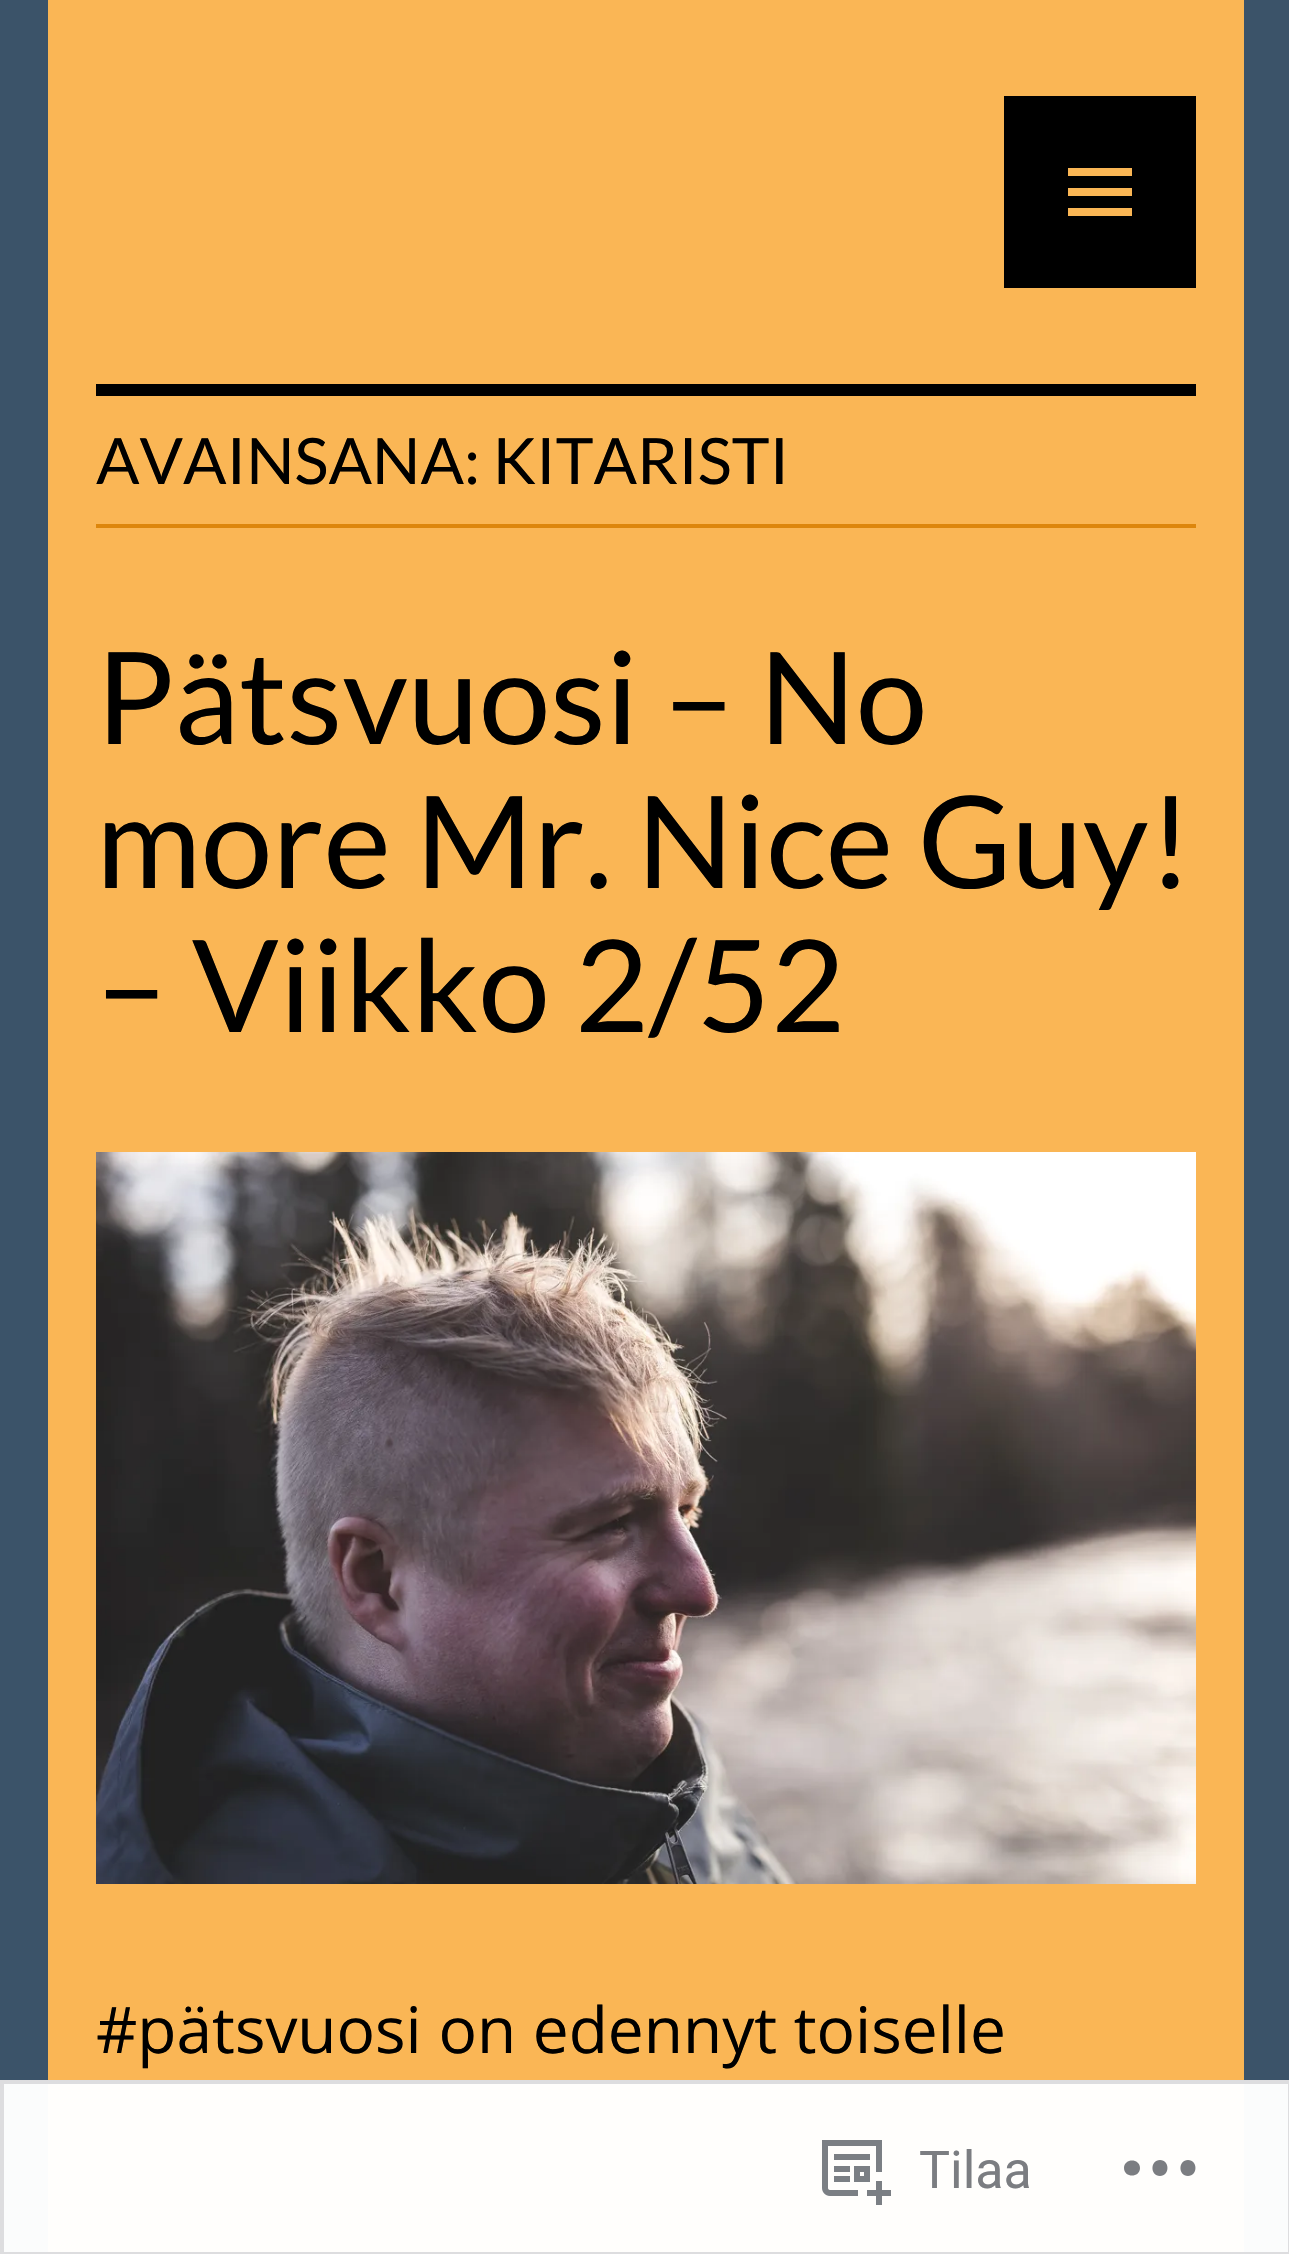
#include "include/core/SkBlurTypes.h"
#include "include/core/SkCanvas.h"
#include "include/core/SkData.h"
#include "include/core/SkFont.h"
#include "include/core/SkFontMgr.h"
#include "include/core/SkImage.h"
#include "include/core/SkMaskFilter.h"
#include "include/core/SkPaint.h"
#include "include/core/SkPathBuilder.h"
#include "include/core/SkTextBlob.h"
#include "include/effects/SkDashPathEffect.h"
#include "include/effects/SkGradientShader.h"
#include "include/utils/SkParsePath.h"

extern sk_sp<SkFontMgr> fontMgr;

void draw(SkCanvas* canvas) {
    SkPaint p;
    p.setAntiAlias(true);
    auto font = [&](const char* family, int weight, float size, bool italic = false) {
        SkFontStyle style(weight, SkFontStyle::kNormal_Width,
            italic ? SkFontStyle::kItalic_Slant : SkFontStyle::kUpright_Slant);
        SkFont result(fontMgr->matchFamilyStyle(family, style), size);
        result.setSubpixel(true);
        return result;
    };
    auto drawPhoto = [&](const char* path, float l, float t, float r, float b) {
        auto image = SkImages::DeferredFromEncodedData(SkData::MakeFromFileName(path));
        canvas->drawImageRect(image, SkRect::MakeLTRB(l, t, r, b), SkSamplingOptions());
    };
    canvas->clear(0xFF3B5369);
    {
        const struct { float l, t, r, b; SkColor color; } items[] = {
            {0, 2080, 1289, 2254, 0xFFFBFCFC},
            {48, 0, 1244, 2080, 0xFFFAB655},
            {48, 2080, 1244, 2254, 0xFFFFFEFC},
            {1004, 96, 1196, 288, 0xFF000000},
        };
        for (auto [l, t, r, b, color] : items) {
            p.setColor(color);
            canvas->drawRect(SkRect::MakeLTRB(l, t, r, b), p);
        }
    }
    p.setColor(0xFFFAB655);
    canvas->drawPath(SkPathBuilder().moveTo(1068, 216).lineTo(1068, 208).lineTo(1132, 208).lineTo(1132, 216).close().moveTo(1068, 168).lineTo(1132, 168).lineTo(1132, 176).lineTo(1068, 176).close().moveTo(1068, 196).lineTo(1068, 188).lineTo(1132, 188).lineTo(1132, 196).close().detach(), p);
    p.setColor(0xFF000000);
    canvas->drawRect(SkRect::MakeLTRB(96, 384, 1196, 396), p);
    p.setColor(0xFFDD860C);
    canvas->drawRect(SkRect::MakeLTRB(96, 524, 1196, 528), p);
    auto font1 = font("Lato", 400, 64);
    p.setColor(0xFF000000);
    canvas->drawString("AVAINSANA: KITARISTI", 96, 484, font1, p);
    auto font2 = font("Lato", 400, 128);
    {
        const struct { const char* s; float x, y; } items[] = {
            {"Pätsvuosi – No", 96, 744},
            {"more Mr. Nice Guy!", 96, 888},
            {"– Viikko 2/52", 96, 1032},
        };
        for (auto [s, x, y] : items) {
            canvas->drawString(s, x, y, font2, p);
        }
    }
    drawPhoto("media/1.png", 96, 1152, 1196, 1884);
    auto font3 = font("Open Sans", 400, 64);
    canvas->drawString("#pätsvuosi on edennyt toiselle", 96, 2053, font3, p);
    p.setStyle(SkPaint::kStroke_Style);
    p.setStrokeWidth(4);
    p.setColor(0xFADCDCDE);
    canvas->drawRect(SkRect::MakeLTRB(2, 2082, 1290, 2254), p);
    drawPhoto("media/2.png", 822, 2140, 891, 2205);
    auto font4 = font("Roboto", 400, 52);
    p.setStyle(SkPaint::kFill_Style);
    p.setColor(0xFF7B7D81);
    canvas->drawString("Tilaa", 919, 2188, font4, p);
    canvas->drawPath(SkPathBuilder().moveTo(1140, 2168).cubicTo(1140, 2178, 1124, 2178, 1124, 2168).cubicTo(1124, 2158, 1140, 2158, 1140, 2168).close().moveTo(1188, 2160).cubicTo(1178, 2160, 1178, 2176, 1188, 2176).cubicTo(1198, 2176, 1198, 2160, 1188, 2160).close().moveTo(1160, 2160).cubicTo(1150, 2160, 1150, 2176, 1160, 2176).cubicTo(1170, 2176, 1170, 2160, 1160, 2160).close().detach(), p);
}
